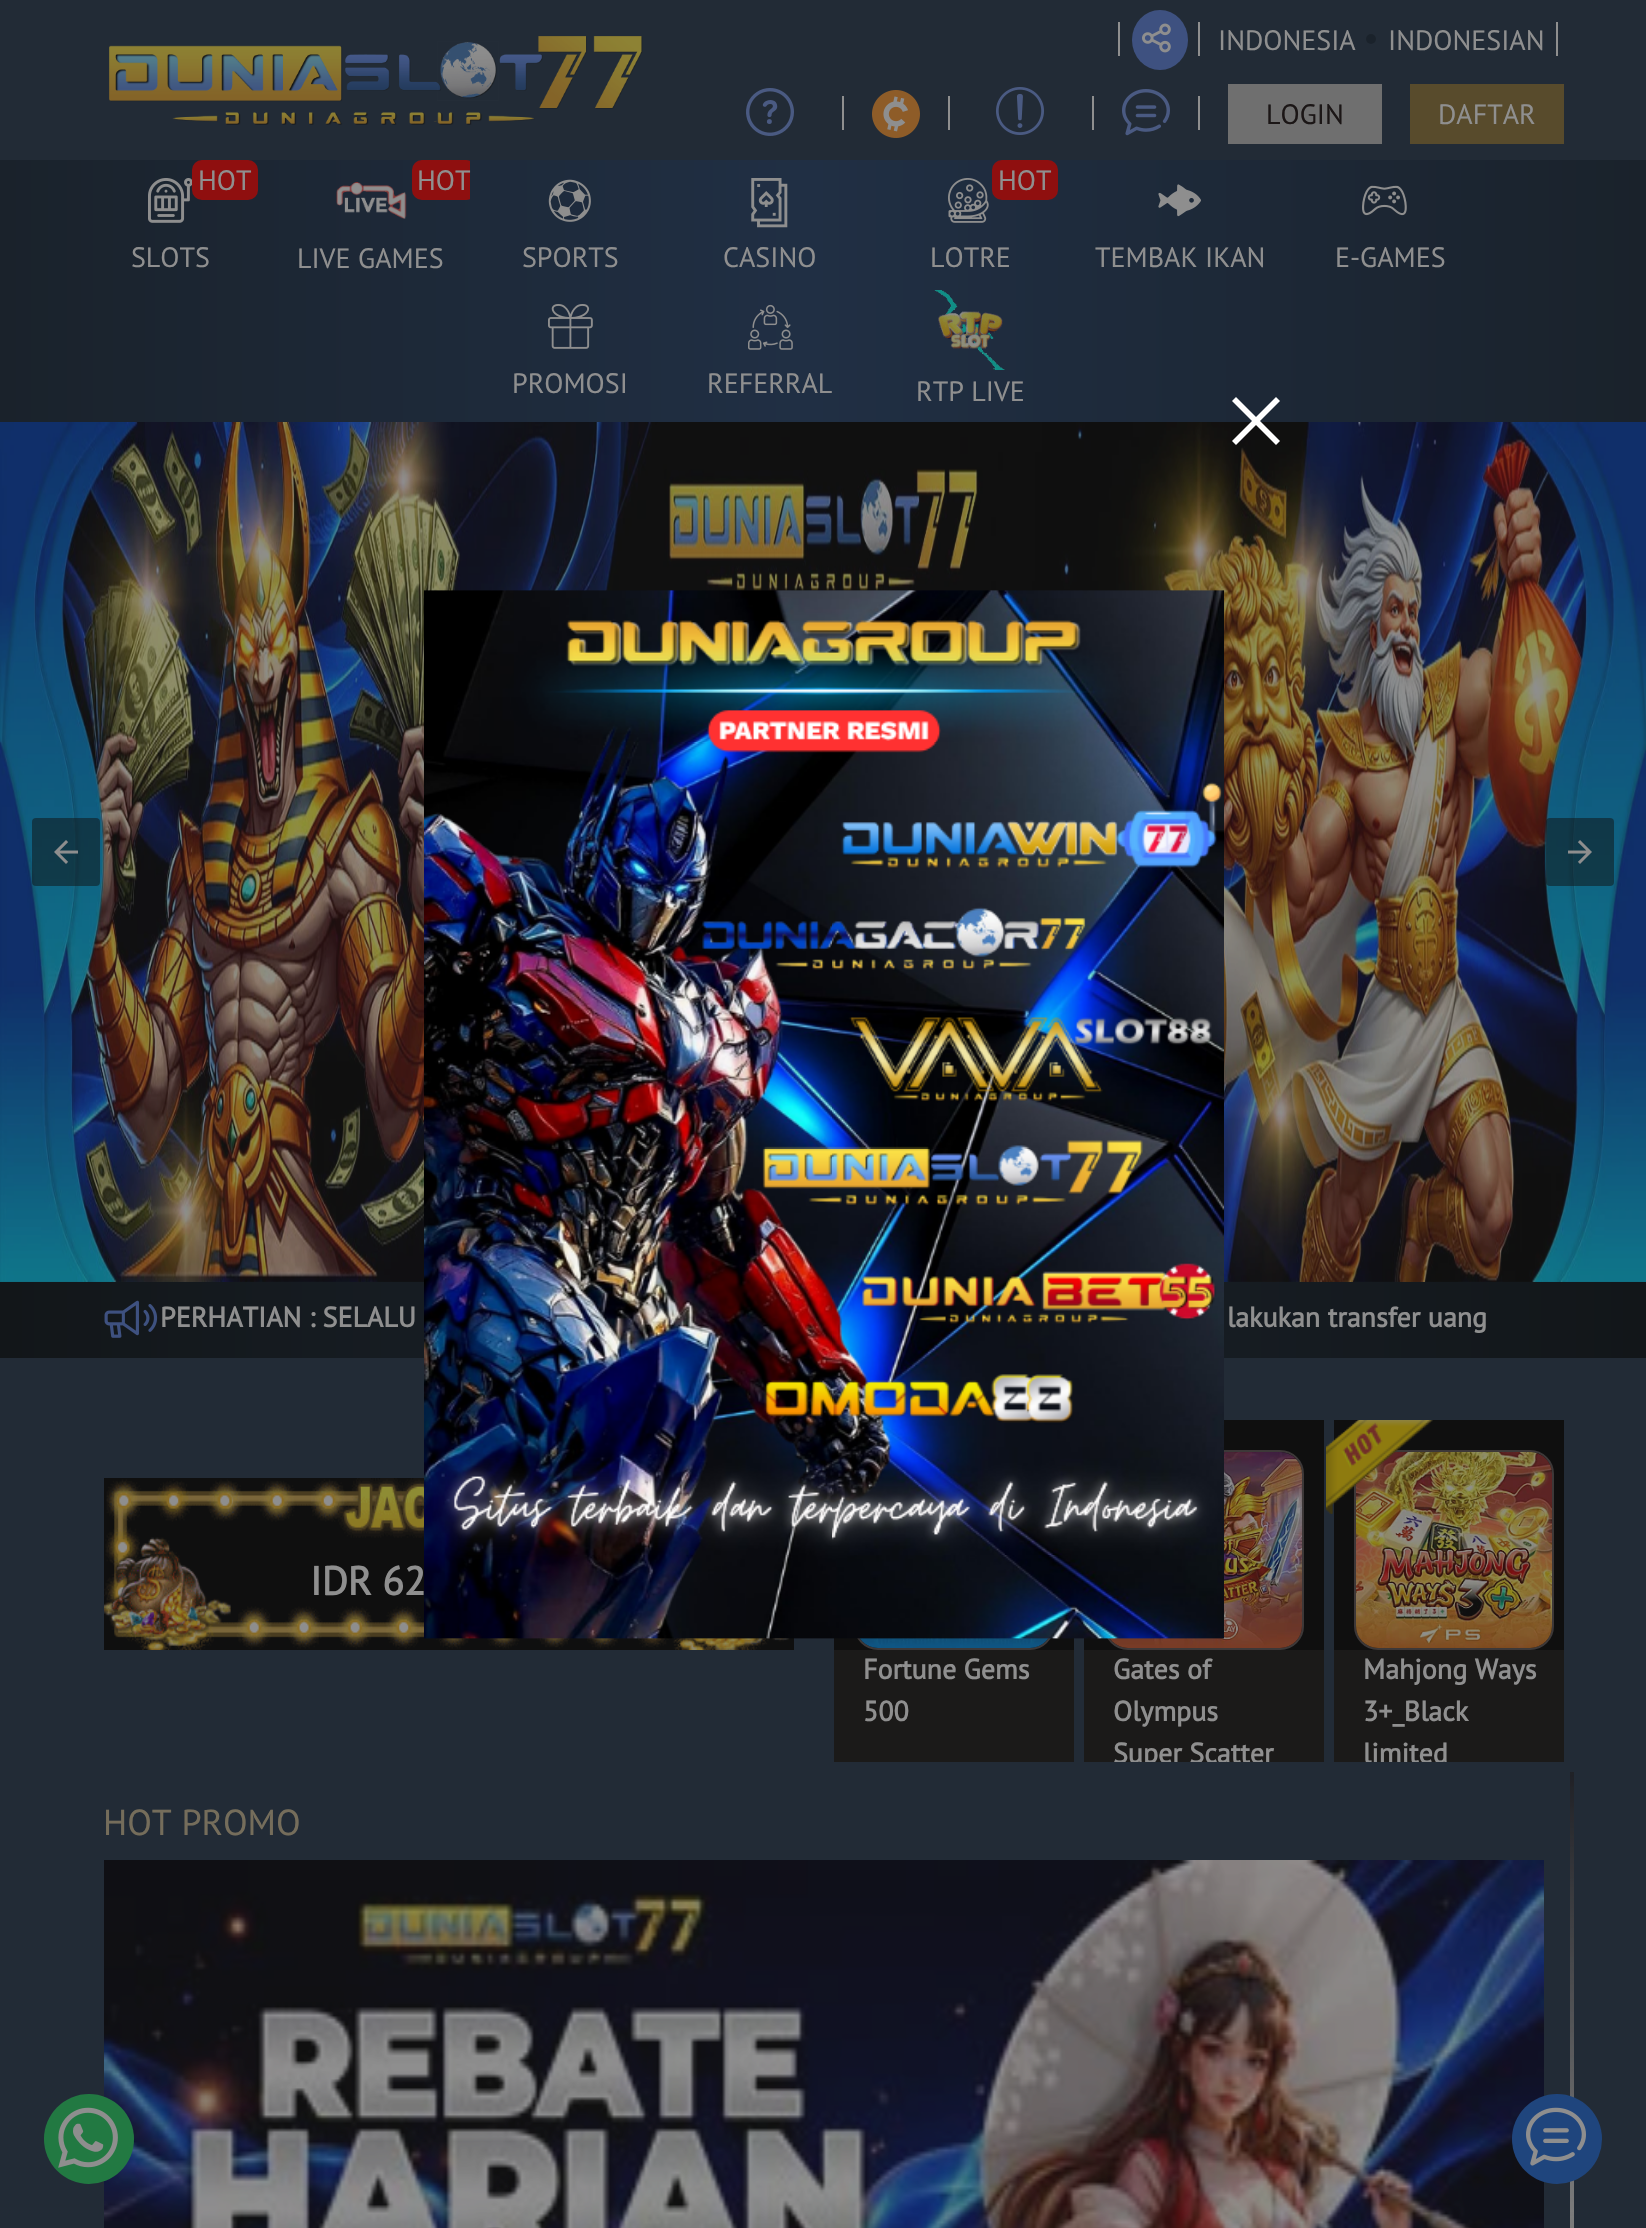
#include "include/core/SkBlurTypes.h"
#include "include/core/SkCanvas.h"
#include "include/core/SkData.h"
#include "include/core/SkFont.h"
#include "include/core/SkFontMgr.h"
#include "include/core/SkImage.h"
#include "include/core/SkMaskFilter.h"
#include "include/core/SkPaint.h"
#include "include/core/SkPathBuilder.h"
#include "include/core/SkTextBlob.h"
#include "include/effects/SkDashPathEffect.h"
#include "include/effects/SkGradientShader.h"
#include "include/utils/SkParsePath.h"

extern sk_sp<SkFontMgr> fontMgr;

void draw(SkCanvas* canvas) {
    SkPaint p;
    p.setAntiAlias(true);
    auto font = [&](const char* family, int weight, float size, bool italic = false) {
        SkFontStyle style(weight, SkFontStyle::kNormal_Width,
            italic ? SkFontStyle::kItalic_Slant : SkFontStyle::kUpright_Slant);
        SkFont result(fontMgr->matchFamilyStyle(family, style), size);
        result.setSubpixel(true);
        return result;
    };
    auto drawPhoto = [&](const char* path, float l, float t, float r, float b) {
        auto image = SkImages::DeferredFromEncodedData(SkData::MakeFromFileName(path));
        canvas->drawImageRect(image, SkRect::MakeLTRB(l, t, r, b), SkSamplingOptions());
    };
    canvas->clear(0xFF222B36);
    drawPhoto("media/1.png", 109, 36, 643, 125);
    p.setColor(0xFF8F8F8F);
    canvas->drawRect(SkRect::MakeLTRB(1118, 22, 1120, 56), p);
    p.setColor(0xFF3E5180);
    canvas->drawOval(SkRect::MakeLTRB(1132, 10, 1188, 70), p);
    drawPhoto("media/2.png", 1142, 23, 1171, 53);
    p.setColor(0xFF8F8F8F);
    canvas->drawRect(SkRect::MakeLTRB(1198, 22, 1200, 56), p);
    auto font1 = font("PT Sans", 400, 28);
    canvas->drawString("INDONESIA", 1218, 50, font1, p);
    p.setColor(0xFF1A222B);
    canvas->drawCircle(1371, 39, 5, p);
    p.setColor(0xFF8F8F8F);
    canvas->drawString("INDONESIAN", 1388, 50, font1, p);
    canvas->drawRect(SkRect::MakeLTRB(1556, 22, 1558, 56), p);
    drawPhoto("media/3.png", 746, 88, 794, 136);
    canvas->drawRect(SkRect::MakeLTRB(842, 96, 844, 130), p);
    drawPhoto("media/4.png", 872, 90, 920, 138);
    canvas->drawRect(SkRect::MakeLTRB(948, 96, 950, 130), p);
    drawPhoto("media/5.png", 996, 87, 1044, 135);
    canvas->drawRect(SkRect::MakeLTRB(1092, 96, 1094, 130), p);
    drawPhoto("media/6.png", 1122, 89, 1170, 136);
    canvas->drawRect(SkRect::MakeLTRB(1198, 96, 1200, 130), p);
    p.setColor(0xFF6F6F6F);
    canvas->drawRect(SkRect::MakeLTRB(1228, 84, 1382, 144), p);
    p.setColor(0xFF1B1616);
    canvas->drawString("LOGIN", 1266, 124, font1, p);
    p.setColor(0xFF584B2C);
    canvas->drawRect(SkRect::MakeLTRB(1410, 84, 1564, 144), p);
    p.setColor(0xFF8F8F8F);
    canvas->drawString("DAFTAR", 1438, 124, font1, p);
    {
        const SkColor colors[] = {0xFF1A222B, 0xFF202F44, 0xFF1A222B};
        const float stops[] = {0, 0.49f, 1};
        const SkPoint ends[] = {{0, 291}, {1646, 291}};
        p.setShader(SkGradientShader::MakeLinear(ends, colors, stops, 3, SkTileMode::kClamp));
        p.setAlpha(255);
    }
    canvas->drawRect(SkRect::MakeLTRB(0, 160, 1646, 422), p);
    drawPhoto("media/7.png", 148, 178, 192, 223);
    p.setShader(nullptr);
    p.setColor(0xFF8F0F0F);
    canvas->drawRoundRect(SkRect::MakeLTRB(192, 160, 258, 200), 10, 10, p);
    p.setColor(0xFF8F8F8F);
    canvas->drawString("HOT", 198, 190, font1, p);
    canvas->drawString("SLOTS", 131, 267, font1, p);
    drawPhoto("media/8.png", 336, 182, 407, 219);
    canvas->save();
    canvas->clipRect(SkRect::MakeLTRB(270, 160, 470, 288));
    p.setColor(0xFF8F0F0F);
    canvas->drawRoundRect(SkRect::MakeLTRB(412, 160, 476, 200), 10, 10, p);
    canvas->restore();
    p.setColor(0xFF8F8F8F);
    canvas->drawString("HOT", 417, 190, font1, p);
    canvas->drawString("LIVE GAMES", 297, 268, font1, p);
    drawPhoto("media/9.png", 548, 179, 591, 222);
    canvas->drawString("SPORTS", 522, 267, font1, p);
    drawPhoto("media/10.png", 751, 178, 788, 228);
    canvas->drawString("CASINO", 723, 267, font1, p);
    drawPhoto("media/11.png", 948, 178, 989, 223);
    p.setColor(0xFF8F0F0F);
    canvas->drawRoundRect(SkRect::MakeLTRB(992, 160, 1058, 200), 10, 10, p);
    p.setColor(0xFF8F8F8F);
    canvas->drawString("HOT", 998, 190, font1, p);
    canvas->drawString("LOTRE", 930, 267, font1, p);
    drawPhoto("media/12.png", 1158, 184, 1201, 217);
    canvas->drawString("TEMBAK IKAN", 1095, 267, font1, p);
    drawPhoto("media/13.png", 1362, 185, 1407, 216);
    canvas->drawString("E-GAMES", 1335, 267, font1, p);
    drawPhoto("media/14.png", 548, 304, 593, 349);
    canvas->drawString("PROMOSI", 512, 393, font1, p);
    drawPhoto("media/15.png", 748, 304, 793, 350);
    canvas->drawString("REFERRAL", 707, 393, font1, p);
    drawPhoto("media/16.png", 934, 290, 1005, 370);
    canvas->drawString("RTP LIVE", 916, 401, font1, p);
    drawPhoto("media/18.png", 0, 422, 1646, 1282);
    p.setColor(0xFFFFFFFF);
    canvas->drawPath(SkPathBuilder().moveTo(1256, 417).lineTo(1236, 397).lineTo(1232, 401).lineTo(1252, 421).lineTo(1232, 441).lineTo(1236, 445).lineTo(1256, 425).lineTo(1276, 445).lineTo(1280, 441).lineTo(1260, 421).lineTo(1280, 401).lineTo(1276, 397).close().detach(), p);
    {
        const SkColor colors[] = {0xFF121619, 0xFF1A222B, 0xFF121619};
        const float stops[] = {0, 0.49f, 1};
        const SkPoint ends[] = {{0, 1320}, {1646, 1320}};
        p.setShader(SkGradientShader::MakeLinear(ends, colors, stops, 3, SkTileMode::kClamp));
        p.setAlpha(255);
    }
    canvas->drawRect(SkRect::MakeLTRB(0, 1282, 1646, 1358), p);
    drawPhoto("media/22.png", 104, 1478, 794, 1650);
    p.setShader(nullptr);
    p.setColor(0xFF0F0F0F);
    canvas->drawRect(SkRect::MakeLTRB(834, 1638, 1074, 1650), p);
    p.setStyle(SkPaint::kStroke_Style);
    p.setStrokeWidth(2);
    p.setColor(0xFF3D3838);
    canvas->drawRoundRect(SkRect::MakeLTRB(855, 1451, 1053, 1649), 23, 23, p);
    drawPhoto("media/24.png", 859, 1638, 1049, 1648);
    p.setStyle(SkPaint::kFill_Style);
    p.setColor(0xFF0F0F0F);
    canvas->drawRect(SkRect::MakeLTRB(1084, 1420, 1324, 1650), p);
    p.setStyle(SkPaint::kStroke_Style);
    p.setColor(0xFF3D3838);
    canvas->drawRoundRect(SkRect::MakeLTRB(1105, 1451, 1303, 1649), 23, 23, p);
    drawPhoto("media/25.png", 1109, 1452, 1302, 1648);
    drawPhoto("media/17.png", 424, 590, 1224, 1639);
    p.setStyle(SkPaint::kFill_Style);
    p.setColor(0x800F0F0F);
    canvas->drawRoundRect(SkRect::MakeLTRB(32, 818, 100, 886), 4, 4, p);
    drawPhoto("media/19.png", 54, 840, 78, 864);
    canvas->drawRoundRect(SkRect::MakeLTRB(1546, 818, 1614, 886), 4, 4, p);
    drawPhoto("media/20.png", 1568, 840, 1592, 864);
    drawPhoto("media/21.png", 104, 1300, 158, 1338);
    auto font2 = font("PT Sans", 700, 28);
    p.setColor(0xFF8F8F8F);
    canvas->drawString("PERHATIAN : SELALU", 160, 1327, font2, p);
    canvas->drawString("lakukan transfer uang", 1227, 1327, font2, p);
    auto font3 = font("PT Sans", 700, 40);
    canvas->drawString("IDR 62", 310, 1595, font3, p);
    p.setColor(0xFF0F0F0F);
    canvas->drawRect(SkRect::MakeLTRB(1334, 1420, 1564, 1650), p);
    p.setStyle(SkPaint::kStroke_Style);
    p.setColor(0xFF3D3838);
    canvas->drawRoundRect(SkRect::MakeLTRB(1355, 1451, 1553, 1649), 23, 23, p);
    drawPhoto("media/27.png", 1356, 1452, 1552, 1648);
    drawPhoto("media/23.png", 1326, 1420, 1433, 1514);
    p.setStyle(SkPaint::kFill_Style);
    p.setColor(0xFF1B1A19);
    canvas->drawRect(SkRect::MakeLTRB(834, 1650, 1074, 1762), p);
    p.setColor(0xFF8F8F8F);
    canvas->drawString("Fortune Gems", 863, 1679, font2, p);
    canvas->drawString("500", 863, 1721, font2, p);
    p.setColor(0xFF1B1A19);
    canvas->drawRect(SkRect::MakeLTRB(1084, 1650, 1324, 1762), p);
    p.setColor(0xFF8F8F8F);
    canvas->drawString("Gates of", 1113, 1679, font2, p);
    canvas->drawString("Olympus", 1113, 1721, font2, p);
    canvas->save();
    canvas->clipRect(SkRect::MakeLTRB(834, 1420, 1564, 1762));
    canvas->drawString("Super Scatter", 1113, 1763, font2, p);
    canvas->restore();
    drawPhoto("media/26.png", 1326, 1420, 1433, 1514);
    p.setColor(0xFF1B1A19);
    canvas->drawRect(SkRect::MakeLTRB(1334, 1650, 1564, 1762), p);
    p.setColor(0xFF8F8F8F);
    canvas->drawString("Mahjong Ways", 1363, 1679, font2, p);
    canvas->drawString("3+_Black", 1363, 1721, font2, p);
    canvas->save();
    canvas->clipRect(SkRect::MakeLTRB(834, 1420, 1564, 1762));
    canvas->drawString("limited", 1363, 1763, font2, p);
    canvas->restore();
    auto font4 = font("PT Sans", 400, 36);
    p.setColor(0xFF756D5B);
    canvas->drawString("HOT PROMO", 103, 1835, font4, p);
    drawPhoto("media/28.png", 1570, 1772, 1574, 2228);
    drawPhoto("media/29.png", 104, 1860, 1544, 2228);
    p.setColor(0xFF227942);
    canvas->drawCircle(89, 2139, 45, p);
    drawPhoto("media/30.png", 58, 2107, 118, 2168);
    p.setColor(0xFF1F457D);
    canvas->drawCircle(1557, 2139, 45, p);
    drawPhoto("media/31.png", 1526, 2107, 1586, 2166);
}
